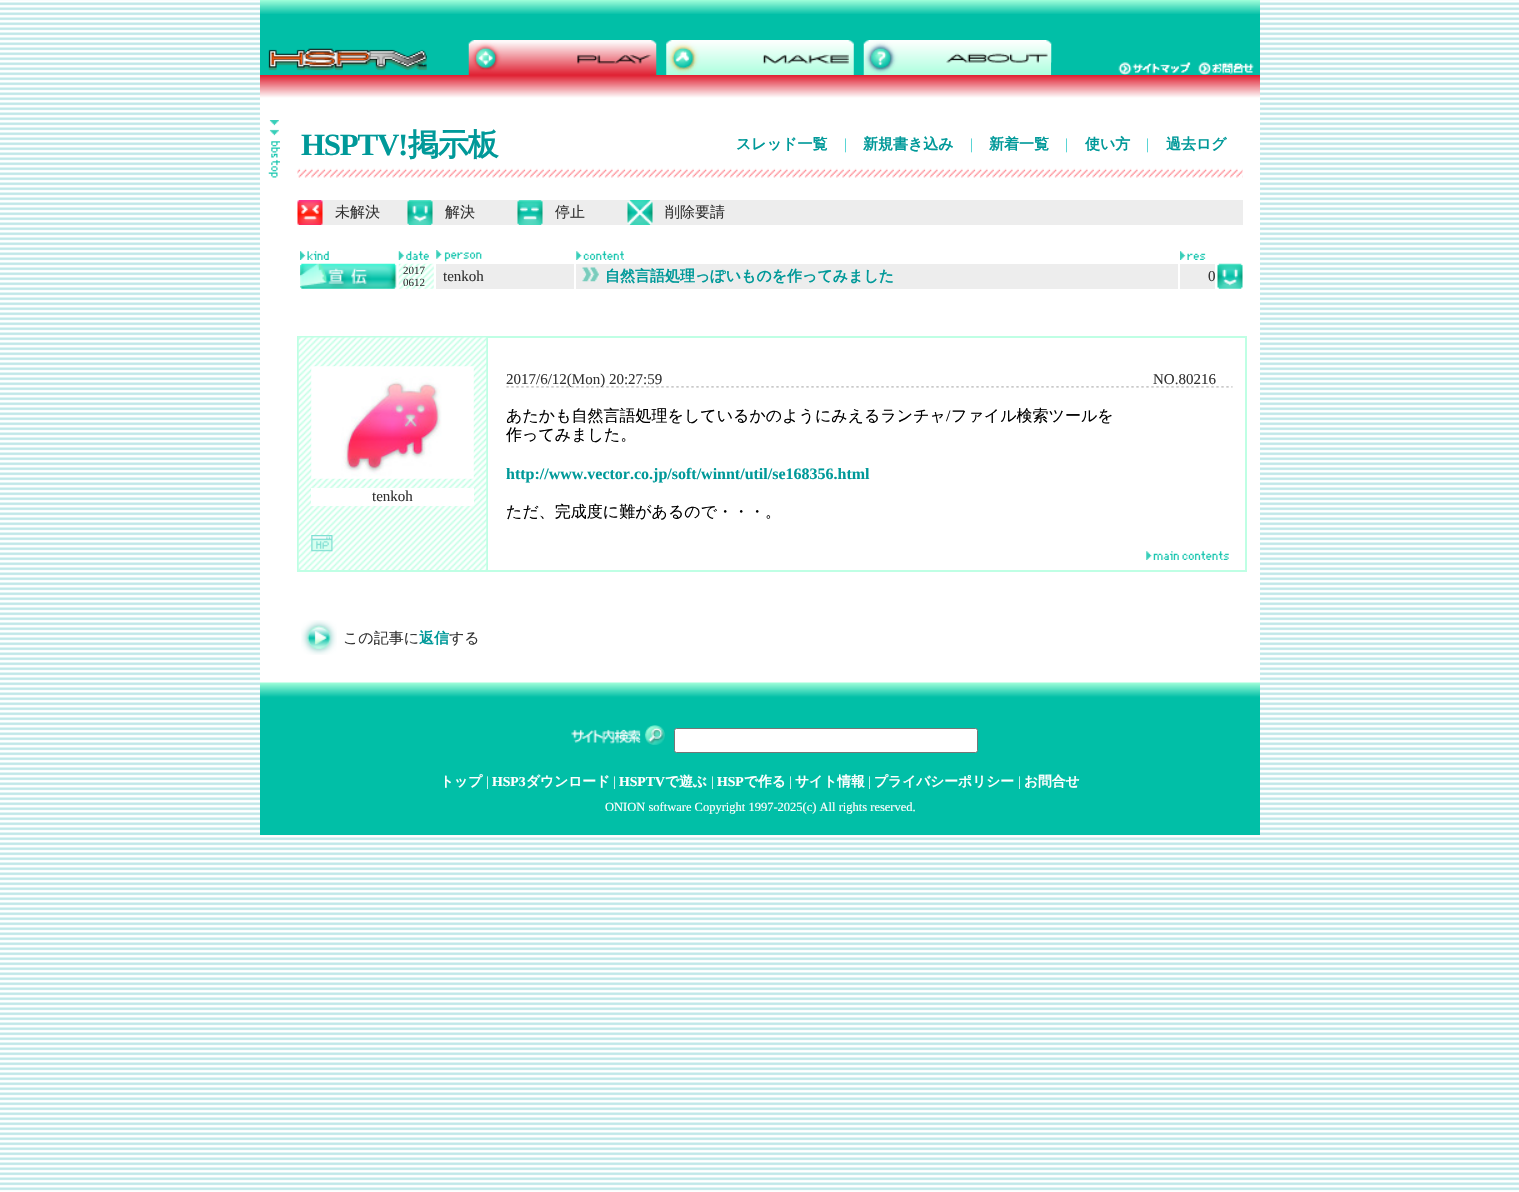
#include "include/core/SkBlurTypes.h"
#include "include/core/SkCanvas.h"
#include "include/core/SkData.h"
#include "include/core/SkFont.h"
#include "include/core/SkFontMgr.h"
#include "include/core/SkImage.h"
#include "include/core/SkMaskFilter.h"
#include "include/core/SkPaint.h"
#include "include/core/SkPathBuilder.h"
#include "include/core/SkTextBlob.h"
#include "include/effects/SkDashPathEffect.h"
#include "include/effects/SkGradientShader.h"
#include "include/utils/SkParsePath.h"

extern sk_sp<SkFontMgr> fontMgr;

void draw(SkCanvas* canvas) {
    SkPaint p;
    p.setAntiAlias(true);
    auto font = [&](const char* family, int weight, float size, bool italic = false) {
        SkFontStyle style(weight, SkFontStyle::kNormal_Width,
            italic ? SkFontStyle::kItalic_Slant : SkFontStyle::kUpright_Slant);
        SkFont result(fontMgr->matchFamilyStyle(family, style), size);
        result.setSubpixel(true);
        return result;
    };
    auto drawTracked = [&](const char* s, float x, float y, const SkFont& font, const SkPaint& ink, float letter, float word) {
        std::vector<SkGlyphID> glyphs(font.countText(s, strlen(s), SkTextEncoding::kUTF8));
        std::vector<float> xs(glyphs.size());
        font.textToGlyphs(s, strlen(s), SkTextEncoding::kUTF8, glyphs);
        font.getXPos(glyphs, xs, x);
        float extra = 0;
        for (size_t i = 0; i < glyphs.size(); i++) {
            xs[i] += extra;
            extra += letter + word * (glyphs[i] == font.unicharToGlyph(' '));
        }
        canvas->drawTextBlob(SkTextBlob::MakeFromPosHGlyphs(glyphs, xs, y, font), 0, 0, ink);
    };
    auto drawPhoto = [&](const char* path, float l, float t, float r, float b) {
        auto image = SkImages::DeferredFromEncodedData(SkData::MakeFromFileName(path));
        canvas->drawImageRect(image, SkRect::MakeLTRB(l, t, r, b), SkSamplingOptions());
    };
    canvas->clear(0xFFFFFFFF);
    drawPhoto("media/1.png", 0, 0, 1519, 1191);
    p.setColor(0xFFFFFFFF);
    canvas->drawRect(SkRect::MakeLTRB(260, 97, 1260, 98), p);
    p.setColor(0xFF01BFA7);
    canvas->drawRect(SkRect::MakeLTRB(260, 14, 1260, 75), p);
    drawPhoto("media/2.png", 260, 0, 1260, 14);
    drawPhoto("media/3.png", 268, 48, 427, 71);
    drawPhoto("media/4.png", 468, 40, 657, 75);
    drawPhoto("media/5.png", 666, 40, 854, 75);
    drawPhoto("media/6.png", 863, 40, 1052, 75);
    drawPhoto("media/7.png", 1051, 62, 1052, 75);
    drawPhoto("media/8.png", 1118, 62, 1191, 75);
    drawPhoto("media/9.png", 1198, 62, 1254, 75);
    drawPhoto("media/10.png", 260, 75, 1260, 98);
    p.setColor(0xFFFFFFFF);
    canvas->drawRect(SkRect::MakeLTRB(260, 98, 1260, 683), p);
    drawPhoto("media/11.png", 268, 120, 280, 178);
    auto font1 = font("Liberation Serif", 700, 31);
    p.setColor(0xFF009999);
    drawTracked("HSPTV!", 301, 155, font1, p, -1.25f, 0);
    auto font2 = font("WenQuanYi Zen Hei", 700, 31);
    drawTracked("掲示板", 408, 155, font2, p, -1.25f, 0);
    auto font3 = font("WenQuanYi Zen Hei", 700, 15);
    canvas->drawString("スレッド一覧", 736, 149, font3, p);
    auto font4 = font("Liberation Serif", 400, 15);
    p.setColor(0xFF33CCCC);
    canvas->drawString("|", 844, 149, font4, p);
    p.setColor(0xFF009999);
    canvas->drawString("新規書き込み", 863, 149, font3, p);
    p.setColor(0xFF33CCCC);
    canvas->drawString("|", 970, 149, font4, p);
    p.setColor(0xFF009999);
    canvas->drawString("新着一覧", 989, 149, font3, p);
    p.setColor(0xFF33CCCC);
    canvas->drawString("|", 1065, 149, font4, p);
    p.setColor(0xFF009999);
    canvas->drawString("使い方", 1085, 149, font3, p);
    p.setColor(0xFF33CCCC);
    canvas->drawString("|", 1146, 149, font4, p);
    p.setColor(0xFF009999);
    canvas->drawString("過去ログ", 1166, 149, font3, p);
    drawPhoto("media/12.png", 297, 168, 1243, 178);
    p.setColor(0xFFEDEDED);
    canvas->drawRect(SkRect::MakeLTRB(322, 200, 1243, 225), p);
    drawPhoto("media/13.png", 297, 200, 323, 225);
    auto font5 = font("WenQuanYi Zen Hei", 500, 15);
    p.setColor(0xFF333333);
    canvas->drawString("未解決", 335, 217, font5, p);
    drawPhoto("media/14.png", 407, 200, 433, 225);
    canvas->drawString("解決", 445, 217, font5, p);
    drawPhoto("media/15.png", 517, 200, 543, 225);
    canvas->drawString("停止", 555, 217, font5, p);
    drawPhoto("media/16.png", 627, 200, 653, 225);
    canvas->drawString("削除要請", 665, 217, font5, p);
    drawPhoto("media/17.png", 300, 251, 329, 260);
    drawPhoto("media/18.png", 398, 251, 429, 260);
    drawPhoto("media/19.png", 436, 250, 482, 262);
    drawPhoto("media/20.png", 576, 251, 624, 260);
    drawPhoto("media/21.png", 1180, 251, 1206, 260);
    drawPhoto("media/22.png", 300, 263, 397, 289);
    drawPhoto("media/23.png", 398, 263, 434, 289);
    auto font6 = font("Liberation Serif", 400, 11);
    canvas->drawString("2017", 403, 274, font6, p);
    canvas->drawString("0612", 403, 286, font6, p);
    p.setColor(0xFFEDEDED);
    canvas->drawRect(SkRect::MakeLTRB(436, 264, 574, 289), p);
    p.setColor(0xFF333333);
    canvas->drawString("tenkoh", 443, 281, font4, p);
    p.setColor(0xFFEDEDED);
    canvas->drawRect(SkRect::MakeLTRB(576, 264, 1178, 289), p);
    drawPhoto("media/24.png", 582, 267, 599, 282);
    p.setColor(0xFF009999);
    canvas->drawString("自然言語処理っぽいものを作ってみました", 605, 281, font3, p);
    p.setColor(0xFFEDEDED);
    canvas->drawRect(SkRect::MakeLTRB(1180, 264, 1215, 289), p);
    p.setColor(0xFF333333);
    canvas->drawString("0", 1208, 281, font4, p);
    drawPhoto("media/25.png", 1217, 263, 1243, 289);
    p.setColor(0xFFBFFFE4);
    canvas->drawRect(SkRect::MakeLTRB(297, 336, 1247, 572), p);
    drawPhoto("media/26.png", 298, 337, 487, 570);
    drawPhoto("media/27.png", 311, 366, 474, 479);
    p.setColor(0xFFFFFFFF);
    canvas->drawRect(SkRect::MakeLTRB(311, 488, 474, 506), p);
    p.setColor(0xFF333333);
    canvas->drawString("tenkoh", 372, 501, font4, p);
    drawPhoto("media/28.png", 311, 535, 333, 552);
    p.setColor(0xFFFFFFFF);
    canvas->drawRect(SkRect::MakeLTRB(488, 338, 1245, 570), p);
    drawPhoto("media/29.png", 506, 386, 1233, 388);
    p.setColor(0xFF333333);
    canvas->drawString("2017/6/12(Mon) 20:27:59", 506, 384, font4, p);
    canvas->drawString("NO.80216", 1153, 384, font4, p);
    auto font7 = font("WenQuanYi Zen Hei", 500, 16);
    p.setColor(0xFF000000);
    canvas->drawString("あたかも自然言語処理をしているかのようにみえるランチャ", 506, 421, font7, p);
    auto font8 = font("Liberation Serif", 400, 16);
    canvas->drawString("/", 946, 421, font8, p);
    canvas->drawString("ファイル検索ツールを", 951, 421, font7, p);
    canvas->drawString("作ってみました。", 506, 440, font7, p);
    auto font9 = font("Liberation Serif", 700, 16);
    p.setColor(0xFF009999);
    canvas->drawString("http://www.vector.co.jp/soft/winnt/util/se168356.html", 506, 479, font9, p);
    p.setColor(0xFF000000);
    canvas->drawString("ただ、完成度に難があるので・・・。", 506, 517, font7, p);
    drawPhoto("media/30.png", 1146, 551, 1229, 560);
    drawPhoto("media/31.png", 301, 620, 337, 655);
    p.setColor(0xFF333333);
    canvas->drawString("この記事に", 343, 643, font5, p);
    p.setColor(0xFF009999);
    canvas->drawString("返信", 419, 643, font3, p);
    p.setColor(0xFF333333);
    canvas->drawString("する", 449, 643, font5, p);
    drawPhoto("media/32.png", 260, 682, 1260, 722);
    p.setColor(0xFF01BFA7);
    canvas->drawRect(SkRect::MakeLTRB(260, 722, 1260, 835), p);
    drawPhoto("media/33.png", 571, 725, 665, 745);
    p.setColor(0xFFFFFFFF);
    canvas->drawRoundRect(SkRect::MakeLTRB(674.5f, 728.5f, 977.5f, 752.5f), 2, 2, p);
    p.setStyle(SkPaint::kStroke_Style);
    p.setStrokeWidth(1);
    p.setColor(0xFF767676);
    canvas->drawRoundRect(SkRect::MakeLTRB(674.5f, 728.5f, 977.5f, 752.5f), 2, 2, p);
    auto font10 = font("WenQuanYi Zen Hei", 700, 13.75f);
    p.setStyle(SkPaint::kFill_Style);
    p.setColor(0xFFFFFFFF);
    canvas->drawString("トップ", 440, 786, font10, p);
    auto font11 = font("Liberation Serif", 400, 13.75f);
    canvas->drawString("|", 486, 786, font11, p);
    auto font12 = font("Liberation Serif", 700, 13.75f);
    canvas->drawString("HSP3", 492, 786, font12, p);
    canvas->drawString("ダウンロード", 526, 786, font10, p);
    canvas->drawString("|", 613, 786, font11, p);
    canvas->drawString("HSPTV", 619, 786, font12, p);
    canvas->drawString("で遊ぶ", 665, 786, font10, p);
    canvas->drawString("|", 711, 786, font11, p);
    canvas->drawString("HSP", 717, 786, font12, p);
    canvas->drawString("で作る", 744, 786, font10, p);
    canvas->drawString("|", 789, 786, font11, p);
    canvas->drawString("サイト情報", 795, 786, font10, p);
    canvas->drawString("|", 868, 786, font11, p);
    canvas->drawString("プライバシーポリシー", 874, 786, font10, p);
    canvas->drawString("|", 1018, 786, font11, p);
    canvas->drawString("お問合せ", 1024, 786, font10, p);
    auto font13 = font("Liberation Serif", 400, 12.5f);
    canvas->drawString("ONION software Copyright 1997-2025(c) All rights reserved.", 605, 811, font13, p);
}
